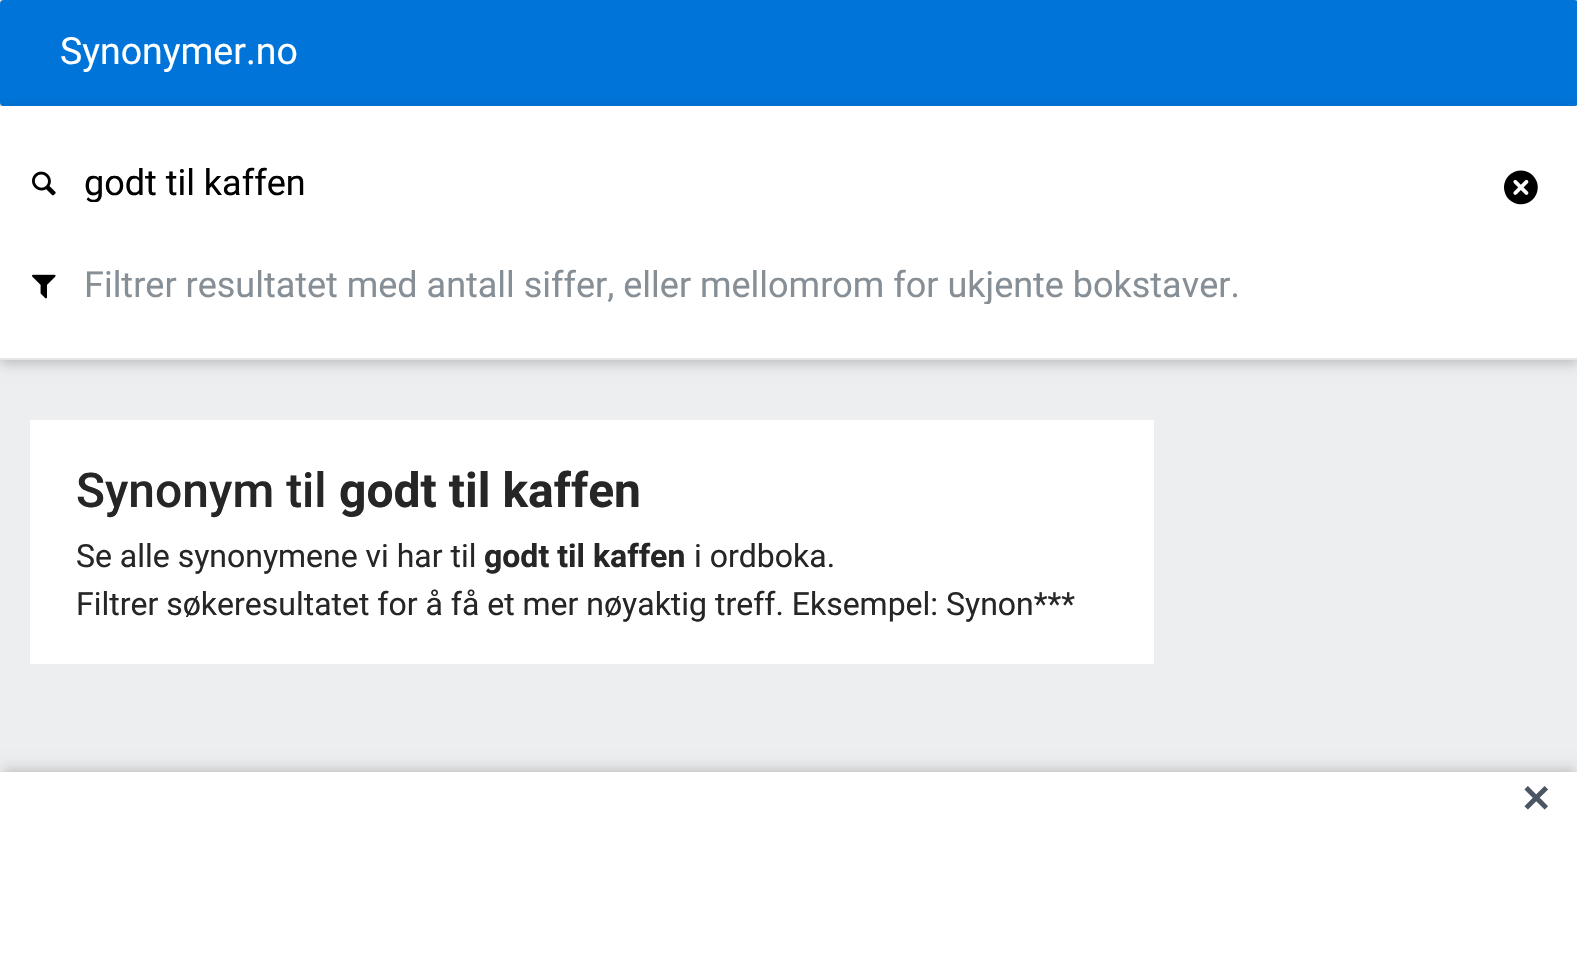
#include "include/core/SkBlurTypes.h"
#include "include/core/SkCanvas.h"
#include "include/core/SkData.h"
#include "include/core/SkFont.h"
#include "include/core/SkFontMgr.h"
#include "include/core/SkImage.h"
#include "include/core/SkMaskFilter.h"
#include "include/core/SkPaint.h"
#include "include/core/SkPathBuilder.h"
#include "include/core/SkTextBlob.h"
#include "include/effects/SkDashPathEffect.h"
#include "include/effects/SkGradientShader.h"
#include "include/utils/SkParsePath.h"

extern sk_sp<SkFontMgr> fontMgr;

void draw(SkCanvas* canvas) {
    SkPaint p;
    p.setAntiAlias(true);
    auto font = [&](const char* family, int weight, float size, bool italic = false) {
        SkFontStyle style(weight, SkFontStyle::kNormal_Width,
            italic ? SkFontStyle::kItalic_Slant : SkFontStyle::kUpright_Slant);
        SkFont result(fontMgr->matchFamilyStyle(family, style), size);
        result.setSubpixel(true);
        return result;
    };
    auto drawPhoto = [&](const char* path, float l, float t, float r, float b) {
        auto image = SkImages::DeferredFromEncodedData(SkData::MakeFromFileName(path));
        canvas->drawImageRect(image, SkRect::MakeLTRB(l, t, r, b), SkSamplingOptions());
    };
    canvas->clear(0xFFECEEEF);
    p.setColor(0x1F000000);
    p.setMaskFilter(SkMaskFilter::MakeBlur(kNormal_SkBlurStyle, 10));
    canvas->drawRoundRect(SkRect::MakeLTRB(0, 4, 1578, 110), 4, 4, p);
    p.setMaskFilter(nullptr);
    p.setColor(0x29000000);
    p.setMaskFilter(SkMaskFilter::MakeBlur(kNormal_SkBlurStyle, 5));
    canvas->drawRoundRect(SkRect::MakeLTRB(0, 4, 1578, 110), 4, 4, p);
    p.setMaskFilter(nullptr);
    p.setColor(0xFF0074D9);
    canvas->drawRoundRect(SkRect::MakeLTRB(0, 0, 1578, 106), 4, 4, p);
    auto font1 = font("Roboto", 400, 37.5f);
    p.setColor(0xFFFFFFFF);
    canvas->drawString("Synonymer.no", 60, 64, font1, p);
    p.setColor(0x33000000);
    p.setMaskFilter(SkMaskFilter::MakeBlur(kNormal_SkBlurStyle, 6));
    canvas->drawRect(SkRect::MakeLTRB(0, 110, 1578, 364), p);
    p.setMaskFilter(nullptr);
    p.setColor(0xFFFFFFFF);
    canvas->drawRect(SkRect::MakeLTRB(0, 106, 1577, 358), p);
    p.setColor(0xFFE6E6E6);
    canvas->drawRect(SkRect::MakeLTRB(0, 358, 1577, 360), p);
    drawPhoto("media/1.png", 32, 171, 56, 196);
    canvas->save();
    canvas->clipRect(SkRect::MakeLTRB(84, 160, 1534, 202));
    auto font2 = font("Roboto", 400, 36);
    p.setColor(0xFF000000);
    canvas->drawString("godt til kaffen", 84, 195, font2, p);
    canvas->restore();
    drawPhoto("media/2.png", 1504, 170, 1538, 205);
    drawPhoto("media/3.png", 32, 274, 56, 299);
    canvas->save();
    canvas->clipRect(SkRect::MakeLTRB(84, 262, 1546, 304));
    p.setColor(0xFF868E96);
    canvas->drawString("Filtrer resultatet med antall siffer, eller mellomrom for ukjente bokstaver.", 84, 297, font2, p);
    canvas->restore();
    p.setColor(0xFFFFFFFF);
    canvas->drawRect(SkRect::MakeLTRB(30, 420, 1154, 664), p);
    auto font3 = font("Roboto", 500, 48);
    p.setColor(0xFF262627);
    canvas->drawString("Synonym til", 76, 507, font3, p);
    auto font4 = font("Roboto", 700, 48);
    canvas->drawString("godt til kaffen", 339, 507, font4, p);
    auto font5 = font("Roboto", 400, 32);
    canvas->drawString("Se alle synonymene vi har til", 76, 567, font5, p);
    auto font6 = font("Roboto", 700, 32);
    canvas->drawString("godt til kaffen", 484, 567, font6, p);
    canvas->drawString("i ordboka.", 694, 567, font5, p);
    canvas->drawString("Filtrer søkeresultatet for å få et mer nøyaktig treff. Eksempel: Synon***", 76, 615, font5, p);
    p.setColor(0x1A000000);
    p.setMaskFilter(SkMaskFilter::MakeBlur(kNormal_SkBlurStyle, 4));
    canvas->drawRect(SkRect::MakeLTRB(4, 772, 1574, 964), p);
    p.setMaskFilter(nullptr);
    p.setMaskFilter(SkMaskFilter::MakeBlur(kNormal_SkBlurStyle, 6));
    canvas->drawRect(SkRect::MakeLTRB(2, 766, 1576, 962), p);
    p.setMaskFilter(nullptr);
    p.setColor(0xFFFFFFFF);
    canvas->drawRect(SkRect::MakeLTRB(0, 772, 1577, 971), p);
    auto font7 = font("DejaVu Sans", 700, 37.5f);
    p.setColor(0xFF4B5563);
    canvas->drawString("✕", 1520, 812, font7, p);
}
